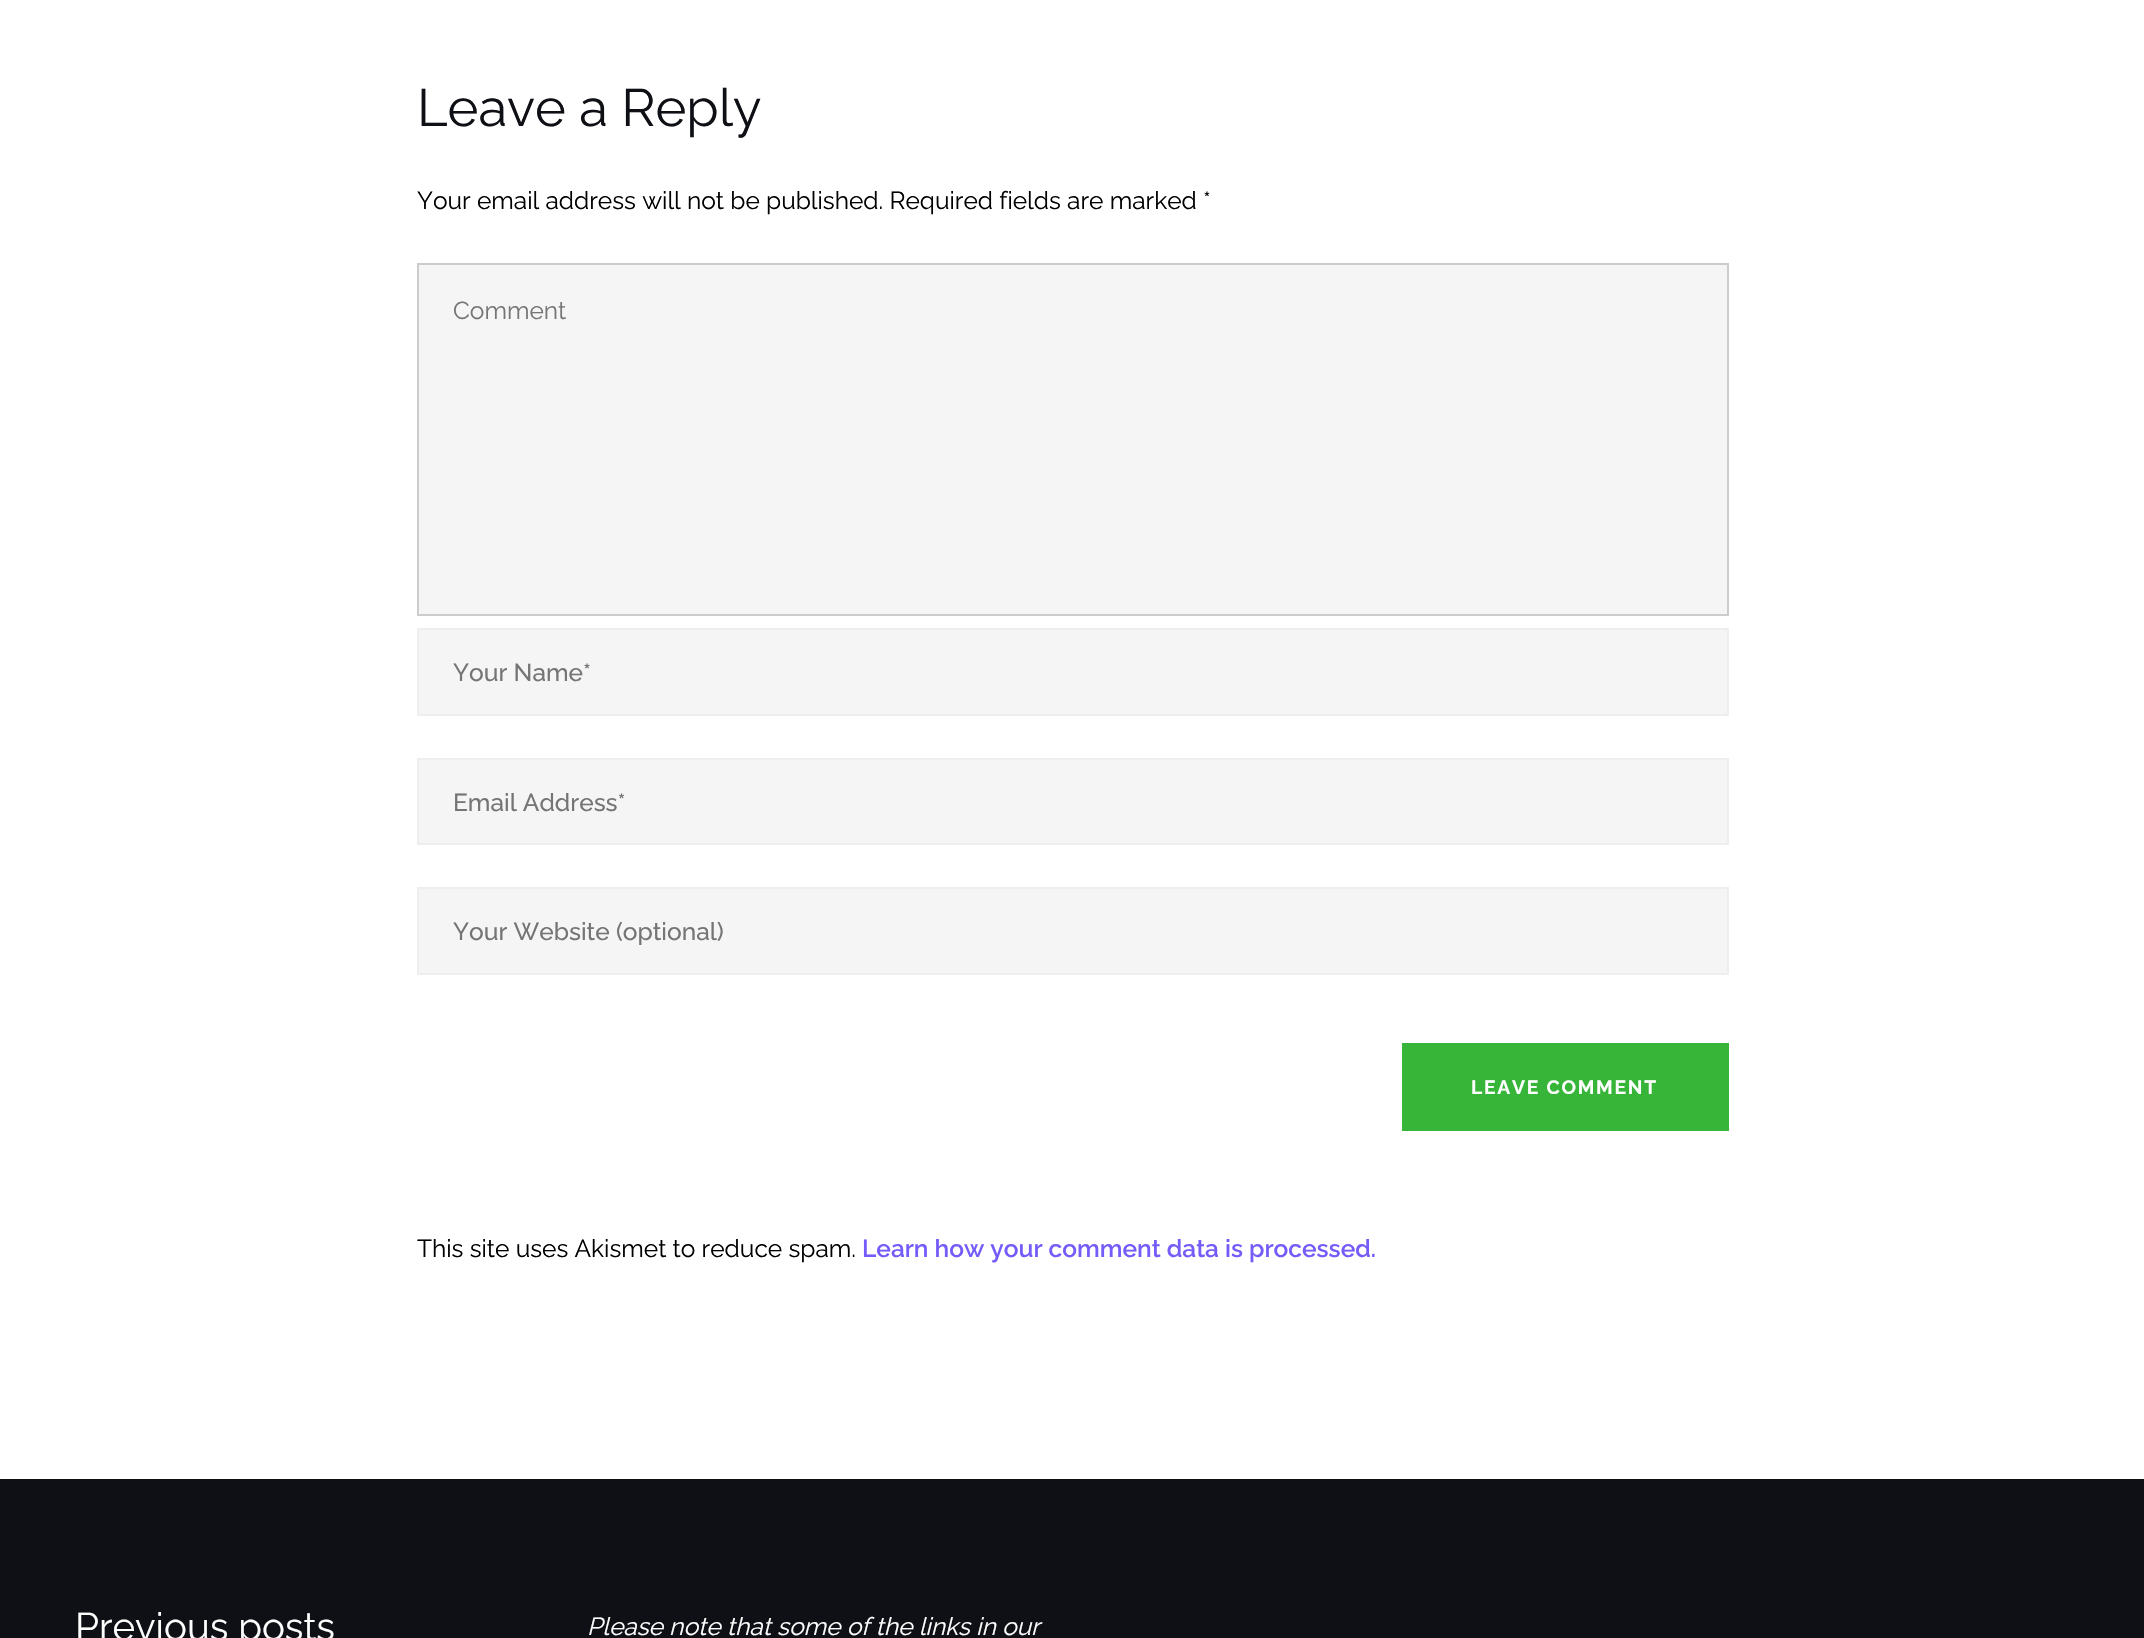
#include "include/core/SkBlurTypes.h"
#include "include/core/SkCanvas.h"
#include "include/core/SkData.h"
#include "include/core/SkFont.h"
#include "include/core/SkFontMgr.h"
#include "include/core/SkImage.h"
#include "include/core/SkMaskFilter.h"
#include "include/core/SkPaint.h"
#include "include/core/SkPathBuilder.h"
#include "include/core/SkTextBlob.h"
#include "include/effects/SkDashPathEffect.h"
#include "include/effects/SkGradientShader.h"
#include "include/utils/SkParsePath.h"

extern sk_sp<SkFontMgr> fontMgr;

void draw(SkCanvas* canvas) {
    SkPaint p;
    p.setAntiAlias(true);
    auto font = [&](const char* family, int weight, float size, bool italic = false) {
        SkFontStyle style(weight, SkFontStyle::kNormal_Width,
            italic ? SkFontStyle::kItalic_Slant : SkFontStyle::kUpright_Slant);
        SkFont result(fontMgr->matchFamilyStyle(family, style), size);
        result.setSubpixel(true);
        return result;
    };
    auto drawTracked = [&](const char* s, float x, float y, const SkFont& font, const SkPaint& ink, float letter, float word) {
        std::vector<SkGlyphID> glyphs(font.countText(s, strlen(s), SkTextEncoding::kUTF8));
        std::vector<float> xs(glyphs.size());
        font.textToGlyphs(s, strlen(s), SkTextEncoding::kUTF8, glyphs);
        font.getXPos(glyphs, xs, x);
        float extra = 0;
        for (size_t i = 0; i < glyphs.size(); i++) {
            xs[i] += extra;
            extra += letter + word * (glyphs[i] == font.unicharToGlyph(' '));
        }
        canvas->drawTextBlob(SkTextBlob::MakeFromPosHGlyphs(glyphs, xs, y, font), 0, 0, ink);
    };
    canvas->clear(0xFFFFFFFF);
    auto font1 = font("Raleway", 400, 52.5f);
    p.setColor(0xFF0E1015);
    canvas->drawString("Leave a Reply", 417, 126, font1, p);
    auto font2 = font("Raleway", 400, 24.5f);
    p.setColor(0xFF000000);
    canvas->drawString("Your email address will not be published. Required fields are marked *", 417, 209, font2, p);
    p.setColor(0xFFF5F5F5);
    canvas->drawRect(SkRect::MakeLTRB(418, 264, 1728, 615), p);
    p.setStyle(SkPaint::kStroke_Style);
    p.setStrokeWidth(2);
    p.setColor(0xFFCCCCCC);
    canvas->drawRect(SkRect::MakeLTRB(418, 264, 1728, 615), p);
    p.setStyle(SkPaint::kFill_Style);
    p.setColor(0xFF757575);
    canvas->drawString("Comment", 453, 319, font2, p);
    p.setColor(0xFFF5F5F5);
    canvas->drawRect(SkRect::MakeLTRB(418, 629, 1728, 715), p);
    p.setStyle(SkPaint::kStroke_Style);
    p.setColor(0xFFEEEEEE);
    canvas->drawRect(SkRect::MakeLTRB(418, 629, 1728, 715), p);
    auto font3 = font("Raleway", 500, 24.5f);
    p.setStyle(SkPaint::kFill_Style);
    p.setColor(0xFF757575);
    canvas->drawString("Your Name*", 453, 681, font3, p);
    p.setColor(0xFFF5F5F5);
    canvas->drawRect(SkRect::MakeLTRB(418, 759, 1728, 844), p);
    p.setStyle(SkPaint::kStroke_Style);
    p.setColor(0xFFEEEEEE);
    canvas->drawRect(SkRect::MakeLTRB(418, 759, 1728, 844), p);
    p.setStyle(SkPaint::kFill_Style);
    p.setColor(0xFF757575);
    canvas->drawString("Email Address*", 453, 811, font3, p);
    p.setColor(0xFFF5F5F5);
    canvas->drawRect(SkRect::MakeLTRB(418, 888, 1728, 974), p);
    p.setStyle(SkPaint::kStroke_Style);
    p.setColor(0xFFEEEEEE);
    canvas->drawRect(SkRect::MakeLTRB(418, 888, 1728, 974), p);
    canvas->save();
    canvas->clipRect(SkRect::MakeLTRB(453, 917, 1722, 945));
    p.setStyle(SkPaint::kFill_Style);
    p.setColor(0xFF757575);
    canvas->drawString("Your Website (optional)", 453, 940, font3, p);
    canvas->restore();
    p.setColor(0xFF36B538);
    canvas->drawRect(SkRect::MakeLTRB(1402, 1043, 1729, 1131), p);
    auto font4 = font("Raleway", 700, 19.25f);
    p.setColor(0xFFFFFFFF);
    drawTracked("LEAVE COMMENT", 1471, 1094, font4, p, 1.75f, 0);
    p.setColor(0xFF000000);
    canvas->drawString("This site uses Akismet to reduce spam.", 417, 1257, font2, p);
    auto font5 = font("Raleway", 600, 24.5f);
    p.setColor(0xFF745CF9);
    canvas->drawString("Learn how your comment data is processed.", 862, 1257, font5, p);
    p.setColor(0xFF0E1015);
    canvas->drawRect(SkRect::MakeLTRB(0, 1479, 2144, 1638), p);
    auto font6 = font("Raleway", 400, 38.5f);
    p.setColor(0xFFFFFFFF);
    canvas->drawString("Previous posts", 75, 1640, font6, p);
    auto font7 = font("Raleway", 400, 24.5f, true);
    canvas->drawString("Please note that some of the links in our", 587, 1635, font7, p);
}
